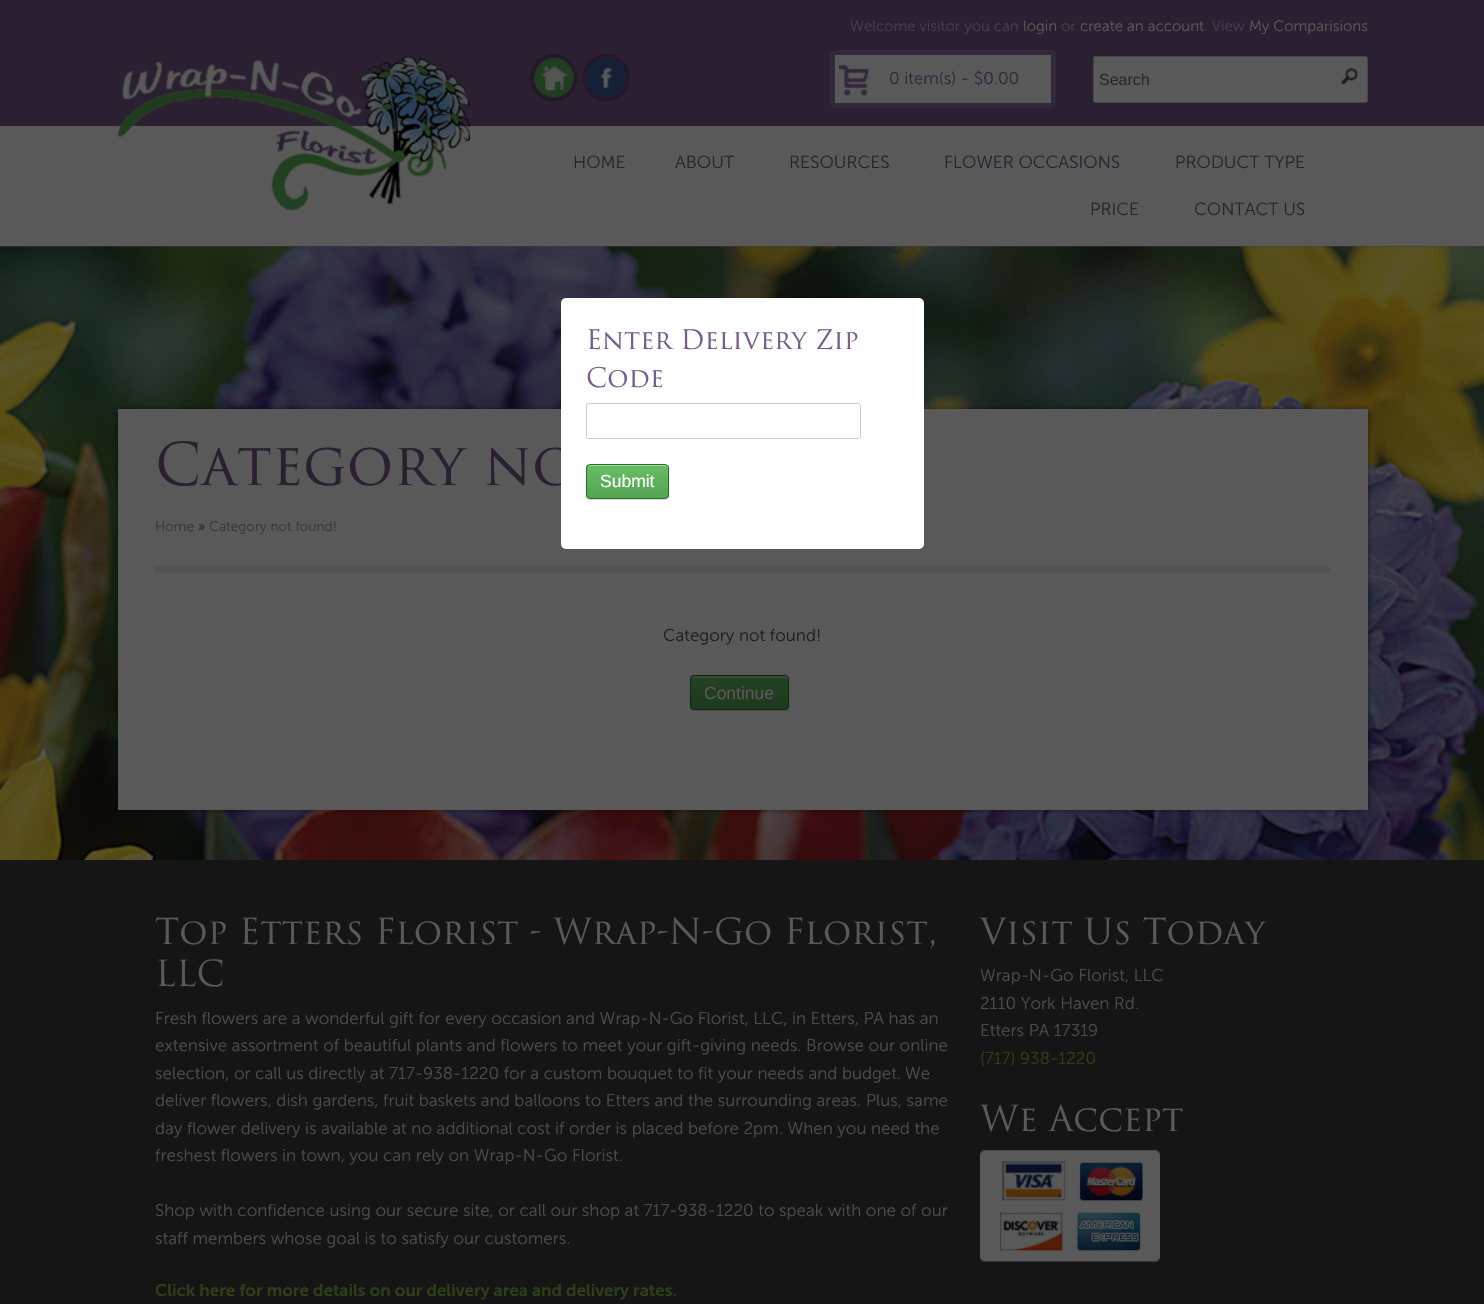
#include "include/core/SkBlurTypes.h"
#include "include/core/SkCanvas.h"
#include "include/core/SkData.h"
#include "include/core/SkFont.h"
#include "include/core/SkFontMgr.h"
#include "include/core/SkImage.h"
#include "include/core/SkMaskFilter.h"
#include "include/core/SkPaint.h"
#include "include/core/SkPathBuilder.h"
#include "include/core/SkTextBlob.h"
#include "include/effects/SkDashPathEffect.h"
#include "include/effects/SkGradientShader.h"
#include "include/utils/SkParsePath.h"

extern sk_sp<SkFontMgr> fontMgr;

void draw(SkCanvas* canvas) {
    SkPaint p;
    p.setAntiAlias(true);
    auto font = [&](const char* family, int weight, float size, bool italic = false) {
        SkFontStyle style(weight, SkFontStyle::kNormal_Width,
            italic ? SkFontStyle::kItalic_Slant : SkFontStyle::kUpright_Slant);
        SkFont result(fontMgr->matchFamilyStyle(family, style), size);
        result.setSubpixel(true);
        return result;
    };
    auto drawPhoto = [&](const char* path, float l, float t, float r, float b) {
        auto image = SkImages::DeferredFromEncodedData(SkData::MakeFromFileName(path));
        canvas->drawImageRect(image, SkRect::MakeLTRB(l, t, r, b), SkSamplingOptions());
    };
    canvas->clear(0xFF3E3940);
    p.setColor(0xFF2B2031);
    canvas->drawRect(SkRect::MakeLTRB(0, 0, 1484, 126), p);
    p.setColor(0xFF595959);
    canvas->drawRect(SkRect::MakeLTRB(0, 126, 1484, 246), p);
    drawPhoto("media/1.png", 117, 56, 470, 211);
    drawPhoto("media/2.png", 530, 54, 578, 102);
    drawPhoto("media/3.png", 582, 54, 630, 102);
    auto font1 = font("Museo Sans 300", 300, 15);
    p.setColor(0xFF473D4D);
    canvas->drawString("Welcome visitor you can", 850, 31, font1, p);
    p.setColor(0xFF595959);
    canvas->drawString("login", 1023, 31, font1, p);
    p.setColor(0xFF473D4D);
    canvas->drawString("or", 1061, 31, font1, p);
    p.setColor(0xFF595959);
    canvas->drawString("create an account", 1080, 31, font1, p);
    p.setColor(0xFF473D4D);
    canvas->drawString(". View", 1204, 31, font1, p);
    p.setColor(0xFF595959);
    canvas->drawString("My Comparisions", 1249, 31, font1, p);
    canvas->drawRoundRect(SkRect::MakeLTRB(832.5f, 52.5f, 1053.5f, 105.5f), 2.5f, 2.5f, p);
    p.setStyle(SkPaint::kStroke_Style);
    p.setStrokeWidth(5);
    p.setColor(0xFF33273A);
    canvas->drawRoundRect(SkRect::MakeLTRB(832.5f, 52.5f, 1053.5f, 105.5f), 2.5f, 2.5f, p);
    drawPhoto("media/4.png", 838, 65, 869, 96);
    auto font2 = font("Museo Sans 300", 300, 17);
    p.setStyle(SkPaint::kFill_Style);
    p.setColor(0xFF34253C);
    canvas->drawString("0 item(s) - $0.00", 889, 84, font2, p);
    p.setColor(0xFF595959);
    canvas->drawRoundRect(SkRect::MakeLTRB(1093.5f, 56.5f, 1367.5f, 102.5f), 2, 2, p);
    p.setStyle(SkPaint::kStroke_Style);
    p.setStrokeWidth(1);
    p.setColor(0xFF474747);
    canvas->drawRoundRect(SkRect::MakeLTRB(1093.5f, 56.5f, 1367.5f, 102.5f), 2, 2, p);
    auto font3 = font("Liberation Sans", 400, 16);
    p.setStyle(SkPaint::kFill_Style);
    p.setColor(0xFF292929);
    canvas->drawString("Search", 1099, 85, font3, p);
    drawPhoto("media/5.png", 1341, 67, 1358, 84);
    auto font4 = font("Museo Sans 300", 300, 17.5f);
    p.setColor(0xFF2B2031);
    {
        const struct { const char* s; float x, y; } items[] = {
            {"HOME", 573, 168},
            {"ABOUT", 675, 168},
            {"RESOURCES", 789, 168},
            {"FLOWER OCCASIONS", 944, 168},
            {"PRODUCT TYPE", 1175, 168},
            {"PRICE", 1090, 215},
            {"CONTACT US", 1194, 215},
        };
        for (auto [s, x, y] : items) {
            canvas->drawString(s, x, y, font4, p);
        }
    }
    drawPhoto("media/6.png", 0, 246, 1484, 860);
    p.setColor(0x80000000);
    p.setMaskFilter(SkMaskFilter::MakeBlur(kNormal_SkBlurStyle, 2.5f));
    canvas->drawRect(SkRect::MakeLTRB(118, 409, 1368, 810), p);
    p.setMaskFilter(nullptr);
    p.setColor(0xFF595959);
    canvas->drawRect(SkRect::MakeLTRB(118, 409, 1368, 810), p);
    auto font5 = font("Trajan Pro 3", 400, 57.5f);
    p.setColor(0xFF2B2031);
    canvas->drawString("Category no", 155, 485, font5, p);
    p.setColor(0xFF535353);
    canvas->drawRect(SkRect::MakeLTRB(155, 566, 1330, 573), p);
    auto font6 = font("Museo Sans 300", 300, 13.75f);
    p.setColor(0xFF363636);
    canvas->drawString("Home", 155, 531, font6, p);
    p.setColor(0xFF1E1E1E);
    canvas->drawString("»", 198, 531, font6, p);
    p.setColor(0xFF363636);
    canvas->drawString("Category not found!", 209, 531, font6, p);
    p.setColor(0xFF1E1E1E);
    canvas->drawString("Category not found!", 663, 641, font2, p);
    p.setColor(0x26000000);
    p.setMaskFilter(SkMaskFilter::MakeBlur(kNormal_SkBlurStyle, 0.5f));
    canvas->drawRoundRect(SkRect::MakeLTRB(690, 676, 789, 711), 4, 4, p);
    p.setMaskFilter(nullptr);
    canvas->save();
    canvas->clipPath(SkPathBuilder().moveTo(694, 675).lineTo(785, 675).cubicTo(787, 675, 789, 677, 789, 679).lineTo(789, 706).cubicTo(789, 708, 787, 710, 785, 710).lineTo(694, 710).cubicTo(692, 710, 690, 708, 690, 706).lineTo(690, 679).cubicTo(690, 677, 692, 675, 694, 675).close().detach(), true);
    {
        const SkColor colors[] = {0xFF244223, 0xFF1E391D};
        const float stops[] = {0, 1};
        const SkPoint ends[] = {{739, 676}, {739, 709}};
        p.setShader(SkGradientShader::MakeLinear(ends, colors, stops, 2, SkTileMode::kClamp));
        p.setAlpha(255);
    }
    canvas->drawRect(SkRect::MakeLTRB(690, 676, 789, 709), p);
    canvas->restore();
    p.setShader(nullptr);
    p.setColor(0xFF394B39);
    canvas->drawPath(SkPathBuilder().moveTo(694, 678).lineTo(785, 678).cubicTo(786, 678, 788, 679, 788, 680).lineTo(788, 678).cubicTo(788, 677, 787, 676, 786, 676).lineTo(694, 676).cubicTo(692, 676, 691, 677, 691, 678).lineTo(691, 680).cubicTo(691, 679, 692, 678, 694, 678).close().detach(), p);
    p.setStyle(SkPaint::kStroke_Style);
    p.setColor(0xFF0C270C);
    canvas->drawRoundRect(SkRect::MakeLTRB(690.5f, 675.5f, 788.5f, 709.5f), 3.5f, 3.5f, p);
    auto font7 = font("Liberation Sans", 400, 17.5f);
    p.setStyle(SkPaint::kFill_Style);
    p.setColor(0xFF595959);
    canvas->drawString("Continue", 704, 699, font7, p);
    p.setColor(0xFF151515);
    canvas->drawRect(SkRect::MakeLTRB(0, 860, 1484, 1304), p);
    auto font8 = font("Trajan Pro 3", 400, 35);
    p.setColor(0xFF595959);
    canvas->drawString("Top Etters Florist - Wrap-N-Go Florist,", 155, 944, font8, p);
    canvas->drawString("LLC", 155, 986, font8, p);
    p.setColor(0xFF4C4C4C);
    {
        const struct { const char* s; float x, y; } items[] = {
            {"Fresh flowers are a wonderful gift for every occasion and Wrap-N-Go Florist, LLC, in Etters, PA has an", 155, 1024},
            {"extensive assortment of beautiful plants and flowers to meet your gift-giving needs.", 155, 1051},
            {"Browse our online", 806, 1051},
            {"selection, or call us directly at 717-938-1220 for a custom bouquet to fit your needs and budget.", 155, 1079},
            {"We", 905, 1079},
            {"deliver flowers, dish gardens, fruit baskets and balloons to Etters and the surrounding areas. Plus, same", 155, 1106},
            {"day flower delivery is available at no additional cost if order is placed before 2pm. When you need the", 155, 1134},
            {"freshest flowers in town, you can rely on Wrap-N-Go Florist.", 155, 1161},
            {"Shop with confidence using our secure site, or call our shop at 717-938-1220 to speak with one of our", 155, 1216},
            {"staff members whose goal is to satisfy our customers.", 155, 1244},
        };
        for (auto [s, x, y] : items) {
            canvas->drawString(s, x, y, font2, p);
        }
    }
    auto font9 = font("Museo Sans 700", 600, 17);
    p.setColor(0xFF2E3F17);
    canvas->drawString("Click here for more details on our delivery area and delivery rates.", 155, 1296, font9, p);
    p.setColor(0xFF595959);
    canvas->drawString("Visit Us Today", 980, 944, font8, p);
    p.setColor(0xFF4C4C4C);
    {
        const struct { const char* s; float x, y; } items[] = {
            {"Wrap-N-Go Florist, LLC", 980, 981},
            {"2110 York Haven Rd.", 980, 1009},
            {"Etters PA 17319", 980, 1036},
        };
        for (auto [s, x, y] : items) {
            canvas->drawString(s, x, y, font2, p);
        }
    }
    p.setColor(0xFF2E3F17);
    canvas->drawString("(717) 938-1220", 980, 1064, font2, p);
    p.setColor(0xFF595959);
    canvas->drawString("We Accept", 980, 1131, font8, p);
    drawPhoto("media/7.png", 980, 1150, 1160, 1262);
    p.setColor(0xFFFFFFFF);
    canvas->drawRoundRect(SkRect::MakeLTRB(561, 298, 924, 549), 5, 5, p);
    auto font10 = font("Trajan Pro 3", 400, 26.25f);
    p.setColor(0xFF7A5C8C);
    canvas->drawString("Enter Delivery Zip", 586, 349, font10, p);
    canvas->drawString("Code", 586, 387, font10, p);
    p.setStyle(SkPaint::kStroke_Style);
    p.setColor(0xFFCCCCCC);
    canvas->drawRoundRect(SkRect::MakeLTRB(586.5f, 403.5f, 860.5f, 438.5f), 2, 2, p);
    p.setStyle(SkPaint::kFill_Style);
    p.setColor(0x26000000);
    p.setMaskFilter(SkMaskFilter::MakeBlur(kNormal_SkBlurStyle, 0.5f));
    canvas->drawRoundRect(SkRect::MakeLTRB(586, 465, 669, 500), 4, 4, p);
    p.setMaskFilter(nullptr);
    canvas->save();
    canvas->clipPath(SkPathBuilder().moveTo(590, 464).lineTo(665, 464).cubicTo(667, 464, 669, 466, 669, 468).lineTo(669, 495).cubicTo(669, 497, 667, 499, 665, 499).lineTo(590, 499).cubicTo(588, 499, 586, 497, 586, 495).lineTo(586, 468).cubicTo(586, 466, 588, 464, 590, 464).close().detach(), true);
    {
        const SkColor colors[] = {0xFF66BD64, 0xFF55A454};
        const float stops[] = {0, 1};
        const SkPoint ends[] = {{628, 465}, {628, 498}};
        p.setShader(SkGradientShader::MakeLinear(ends, colors, stops, 2, SkTileMode::kClamp));
        p.setAlpha(255);
    }
    canvas->drawRect(SkRect::MakeLTRB(586, 465, 669, 498), p);
    canvas->restore();
    p.setShader(nullptr);
    p.setColor(0x66FFFFFF);
    canvas->drawPath(SkPathBuilder().moveTo(590, 466).lineTo(665, 466).cubicTo(666, 466, 668, 467, 668, 469).cubicTo(668, 462, 659, 465, 653, 465).lineTo(603, 465).cubicTo(597, 465, 588, 462, 588, 469).cubicTo(588, 467, 589, 466, 590, 466).close().detach(), p);
    p.setStyle(SkPaint::kStroke_Style);
    p.setColor(0xFF227021);
    canvas->drawRoundRect(SkRect::MakeLTRB(586.5f, 464.5f, 668.5f, 498.5f), 3.5f, 3.5f, p);
    p.setStyle(SkPaint::kFill_Style);
    p.setColor(0xFFFFFFFF);
    canvas->drawString("Submit", 600, 487, font7, p);
}
